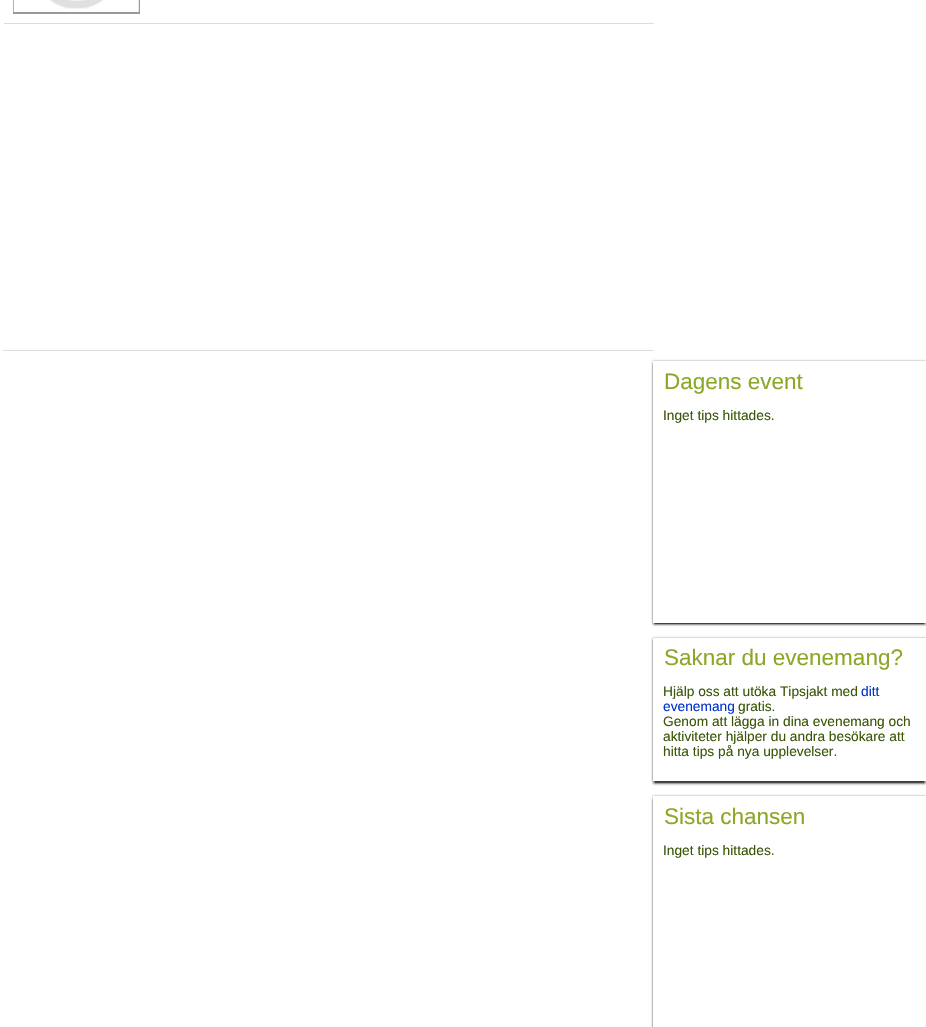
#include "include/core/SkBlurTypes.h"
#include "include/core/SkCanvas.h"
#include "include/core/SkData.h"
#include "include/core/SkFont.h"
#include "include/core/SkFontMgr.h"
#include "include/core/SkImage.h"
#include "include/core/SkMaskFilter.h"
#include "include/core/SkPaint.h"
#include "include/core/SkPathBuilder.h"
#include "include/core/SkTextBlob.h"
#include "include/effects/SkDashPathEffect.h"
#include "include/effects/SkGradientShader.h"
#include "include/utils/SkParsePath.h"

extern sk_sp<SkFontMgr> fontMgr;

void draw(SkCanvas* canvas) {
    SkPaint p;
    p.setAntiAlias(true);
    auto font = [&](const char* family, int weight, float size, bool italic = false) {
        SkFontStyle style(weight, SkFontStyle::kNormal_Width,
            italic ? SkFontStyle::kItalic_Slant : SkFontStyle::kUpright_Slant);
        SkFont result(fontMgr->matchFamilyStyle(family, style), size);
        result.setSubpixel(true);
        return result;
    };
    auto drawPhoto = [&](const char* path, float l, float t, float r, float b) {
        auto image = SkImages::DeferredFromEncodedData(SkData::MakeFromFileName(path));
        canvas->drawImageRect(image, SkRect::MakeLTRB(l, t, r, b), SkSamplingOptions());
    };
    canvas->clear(0xFFFFFFFF);
    {
        const struct { float l, t, r, b; SkColor color; } items[] = {
            {3, 23, 654, 24, 0xFFDDDDDD},
            {3, 23, 4, 24, 0xFFFFFFFF},
            {13, 0, 140, 14, 0xFF999999},
        };
        for (auto [l, t, r, b, color] : items) {
            p.setColor(color);
            canvas->drawRect(SkRect::MakeLTRB(l, t, r, b), p);
        }
    }
    drawPhoto("media/1.png", 13, 0, 139, 12);
    p.setColor(0xFFDDDDDD);
    canvas->drawRect(SkRect::MakeLTRB(3, 350, 654, 351), p);
    canvas->save();
    canvas->clipPath(SkPathBuilder(SkPathFillType::kEvenOdd).moveTo(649, 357).lineTo(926, 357).lineTo(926, 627).lineTo(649, 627).close().moveTo(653, 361).lineTo(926, 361).lineTo(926, 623).lineTo(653, 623).close().detach(), true);
    p.setColor(0x6B000000);
    p.setMaskFilter(SkMaskFilter::MakeBlur(kNormal_SkBlurStyle, 1));
    canvas->drawRect(SkRect::MakeLTRB(653, 361, 926, 623), p);
    p.setMaskFilter(nullptr);
    canvas->restore();
    canvas->save();
    canvas->clipPath(SkPathBuilder(SkPathFillType::kEvenOdd).moveTo(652, 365).lineTo(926, 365).lineTo(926, 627).lineTo(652, 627).close().moveTo(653, 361).lineTo(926, 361).lineTo(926, 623).lineTo(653, 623).close().detach(), true);
    p.setColor(0x80000000);
    p.setMaskFilter(SkMaskFilter::MakeBlur(kNormal_SkBlurStyle, 0.5f));
    canvas->drawRect(SkRect::MakeLTRB(655, 368, 924, 624), p);
    p.setMaskFilter(nullptr);
    canvas->restore();
    canvas->save();
    canvas->clipPath(SkPathBuilder(SkPathFillType::kEvenOdd).moveTo(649, 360).lineTo(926, 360).lineTo(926, 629).lineTo(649, 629).close().moveTo(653, 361).lineTo(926, 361).lineTo(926, 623).lineTo(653, 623).close().detach(), true);
    p.setColor(0x70000000);
    p.setMaskFilter(SkMaskFilter::MakeBlur(kNormal_SkBlurStyle, 1));
    canvas->drawRect(SkRect::MakeLTRB(653, 364, 926, 625), p);
    p.setMaskFilter(nullptr);
    canvas->restore();
    auto font1 = font("Liberation Sans", 400, 22.5f);
    p.setColor(0xFF8BA726);
    canvas->drawString("Dagens event", 664, 389, font1, p);
    auto font2 = font("Liberation Sans", 400, 13.75f);
    p.setColor(0xFF3A5708);
    canvas->drawString("Inget tips hittades.", 663, 420, font2, p);
    canvas->save();
    canvas->clipPath(SkPathBuilder(SkPathFillType::kEvenOdd).moveTo(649, 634).lineTo(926, 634).lineTo(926, 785).lineTo(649, 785).close().moveTo(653, 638).lineTo(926, 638).lineTo(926, 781).lineTo(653, 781).close().detach(), true);
    p.setColor(0x6B000000);
    p.setMaskFilter(SkMaskFilter::MakeBlur(kNormal_SkBlurStyle, 1));
    canvas->drawRect(SkRect::MakeLTRB(653, 638, 926, 781), p);
    p.setMaskFilter(nullptr);
    canvas->restore();
    canvas->save();
    canvas->clipRect(SkRect::MakeLTRB(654, 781, 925, 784));
    p.setColor(0x80000000);
    p.setMaskFilter(SkMaskFilter::MakeBlur(kNormal_SkBlurStyle, 0.5f));
    canvas->drawRect(SkRect::MakeLTRB(655, 644, 924, 783), p);
    p.setMaskFilter(nullptr);
    canvas->restore();
    canvas->save();
    canvas->clipPath(SkPathBuilder(SkPathFillType::kEvenOdd).moveTo(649, 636).lineTo(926, 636).lineTo(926, 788).lineTo(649, 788).close().moveTo(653, 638).lineTo(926, 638).lineTo(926, 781).lineTo(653, 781).close().detach(), true);
    p.setColor(0x70000000);
    p.setMaskFilter(SkMaskFilter::MakeBlur(kNormal_SkBlurStyle, 1));
    canvas->drawRect(SkRect::MakeLTRB(653, 640, 926, 784), p);
    p.setMaskFilter(nullptr);
    canvas->restore();
    p.setColor(0xFF8BA726);
    canvas->drawString("Saknar du evenemang?", 664, 665, font1, p);
    p.setColor(0xFF3A5708);
    canvas->drawString("Hjälp oss att utöka Tipsjakt med", 663, 696, font2, p);
    p.setColor(0xFF0033CC);
    canvas->drawString("ditt", 861, 696, font2, p);
    canvas->drawString("evenemang", 663, 711, font2, p);
    p.setColor(0xFF3A5708);
    {
        const struct { const char* s; float x, y; } items[] = {
            {"gratis.", 738, 711},
            {"Genom att lägga in dina evenemang och", 663, 726},
            {"aktiviteter hjälper du andra besökare att", 663, 741},
            {"hitta tips på nya upplevelser.", 663, 756},
        };
        for (auto [s, x, y] : items) {
            canvas->drawString(s, x, y, font2, p);
        }
    }
    canvas->save();
    canvas->clipPath(SkPathBuilder(SkPathFillType::kEvenOdd).moveTo(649, 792).lineTo(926, 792).lineTo(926, 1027).lineTo(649, 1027).close().moveTo(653, 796).lineTo(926, 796).lineTo(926, 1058).lineTo(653, 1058).close().detach(), true);
    p.setColor(0x6B000000);
    p.setMaskFilter(SkMaskFilter::MakeBlur(kNormal_SkBlurStyle, 1));
    canvas->drawRect(SkRect::MakeLTRB(653, 796, 926, 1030), p);
    p.setMaskFilter(nullptr);
    canvas->restore();
    canvas->save();
    canvas->clipRect(SkRect::MakeLTRB(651, 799, 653, 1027));
    p.setColor(0x70000000);
    p.setMaskFilter(SkMaskFilter::MakeBlur(kNormal_SkBlurStyle, 1));
    canvas->drawRect(SkRect::MakeLTRB(653, 799, 926, 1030), p);
    p.setMaskFilter(nullptr);
    canvas->restore();
    p.setColor(0xFF8BA726);
    canvas->drawString("Sista chansen", 664, 824, font1, p);
    p.setColor(0xFF3A5708);
    canvas->drawString("Inget tips hittades.", 663, 855, font2, p);
}
